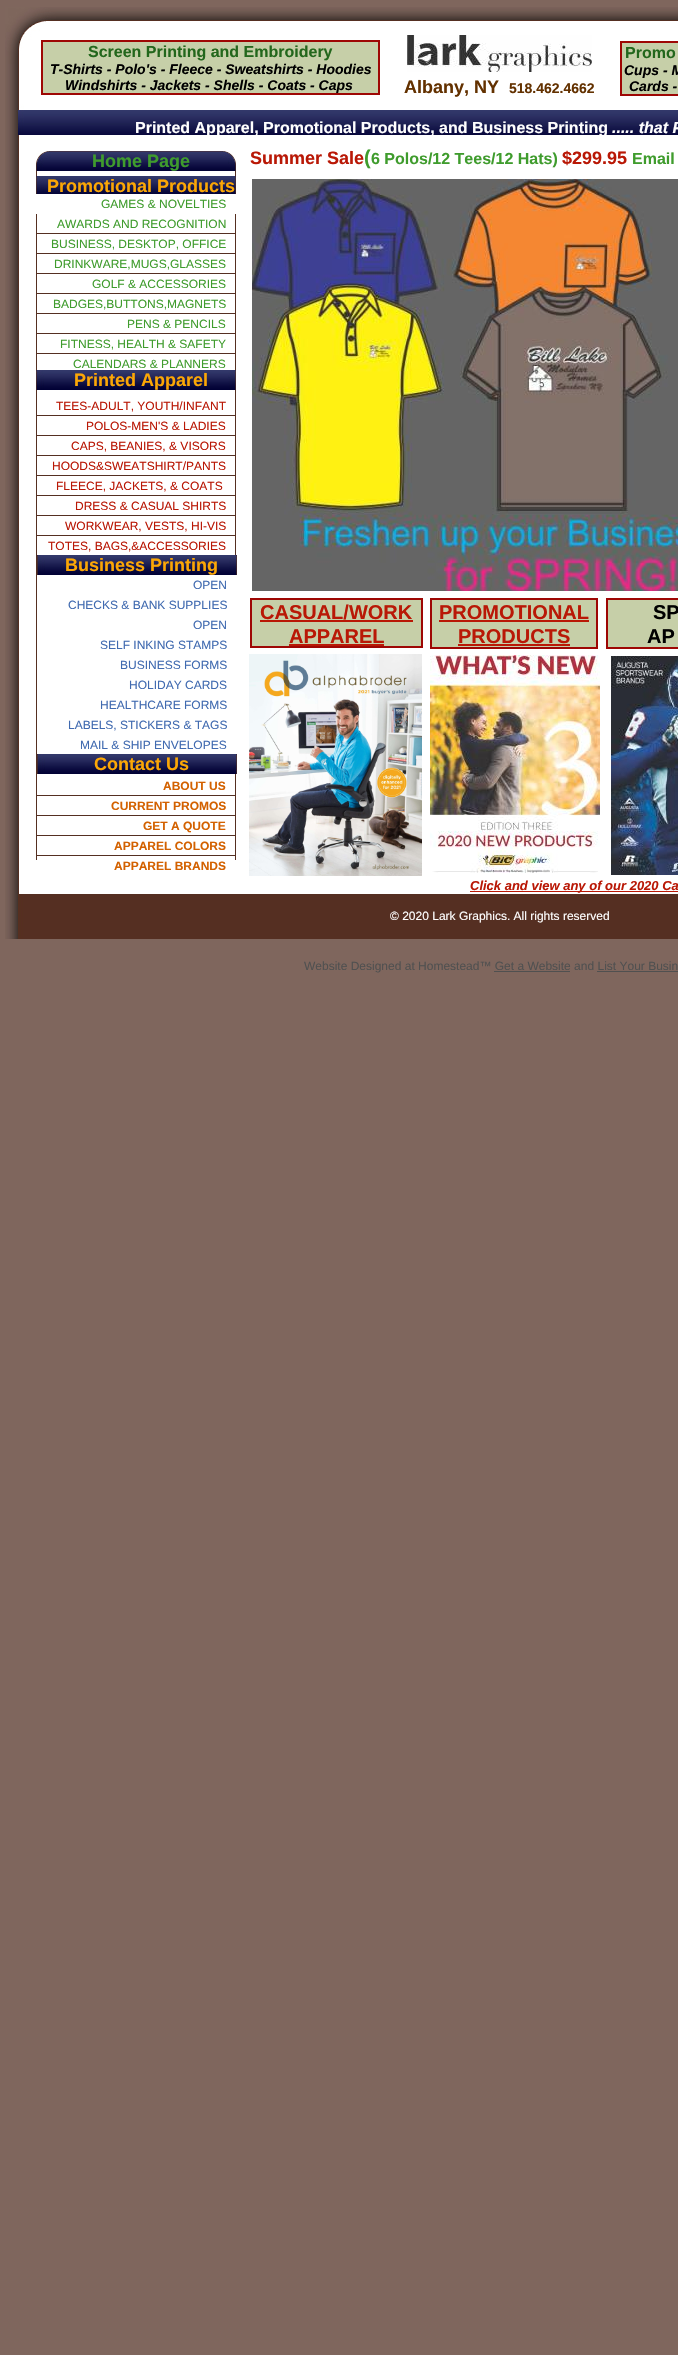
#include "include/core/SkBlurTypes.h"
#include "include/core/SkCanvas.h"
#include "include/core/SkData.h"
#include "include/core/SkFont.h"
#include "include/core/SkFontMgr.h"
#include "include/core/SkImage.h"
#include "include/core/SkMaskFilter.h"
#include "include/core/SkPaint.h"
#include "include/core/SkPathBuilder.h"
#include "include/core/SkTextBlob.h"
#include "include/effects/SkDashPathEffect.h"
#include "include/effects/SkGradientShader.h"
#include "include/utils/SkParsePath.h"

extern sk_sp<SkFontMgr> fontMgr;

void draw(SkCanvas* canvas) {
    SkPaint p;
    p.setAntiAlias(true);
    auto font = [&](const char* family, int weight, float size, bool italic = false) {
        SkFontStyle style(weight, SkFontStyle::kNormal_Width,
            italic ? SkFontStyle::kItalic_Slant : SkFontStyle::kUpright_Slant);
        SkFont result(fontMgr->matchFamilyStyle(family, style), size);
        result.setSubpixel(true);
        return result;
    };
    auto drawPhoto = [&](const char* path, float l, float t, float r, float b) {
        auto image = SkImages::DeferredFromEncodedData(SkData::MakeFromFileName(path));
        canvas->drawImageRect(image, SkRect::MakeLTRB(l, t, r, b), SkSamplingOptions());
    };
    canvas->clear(0xFF7F665D);
    drawPhoto("media/1.png", 5, 7, 678, 135);
    p.setColor(0xFFC6CFA8);
    canvas->drawRect(SkRect::MakeLTRB(42, 41, 379, 94), p);
    p.setStyle(SkPaint::kStroke_Style);
    p.setStrokeWidth(2);
    p.setColor(0xFF9E0704);
    canvas->drawRect(SkRect::MakeLTRB(42, 41, 379, 94), p);
    auto font1 = font("Liberation Sans", 700, 16);
    p.setStyle(SkPaint::kFill_Style);
    p.setColor(0xFF23671C);
    canvas->drawString("Screen Printing and Embroidery", 88, 57, font1, p);
    auto font2 = font("Liberation Sans", 700, 14, true);
    p.setColor(0xFF000000);
    canvas->drawString("T-Shirts - Polo's - Fleece - Sweatshirts - Hoodies", 50, 74, font2, p);
    canvas->drawString("Windshirts - Jackets - Shells - Coats - Caps", 65, 90, font2, p);
    drawPhoto("media/2.png", 407, 35, 592, 72);
    p.setColor(0xFFC6CFA8);
    canvas->drawRect(SkRect::MakeLTRB(621, 42, 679, 95), p);
    p.setStyle(SkPaint::kStroke_Style);
    p.setColor(0xFF9E0704);
    canvas->drawRect(SkRect::MakeLTRB(621, 42, 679, 95), p);
    p.setStyle(SkPaint::kFill_Style);
    p.setColor(0xFF23671C);
    canvas->drawString("Promo", 625, 58, font1, p);
    p.setColor(0xFF000000);
    canvas->drawString("Cups - M", 624, 75, font2, p);
    canvas->drawString("Cards -", 629, 91, font2, p);
    auto font3 = font("Liberation Sans", 700, 18);
    p.setColor(0xFF633100);
    canvas->drawString("Albany, NY", 404, 93, font3, p);
    auto font4 = font("Liberation Sans", 700, 14);
    canvas->drawString("518.462.4662", 509, 93, font4, p);
    drawPhoto("media/3.png", 5, 135, 678, 894);
    p.setColor(0xFFFFFFFF);
    canvas->drawString("Printed Apparel, Promotional Products, and Business Printing", 135, 133, font1, p);
    auto font5 = font("Liberation Sans", 700, 16, true);
    canvas->drawString("..... that P", 612, 133, font5, p);
    drawPhoto("media/4.png", 36, 151, 236, 171);
    p.setColor(0xFF3F9C2D);
    canvas->drawString("Home Page", 92, 167, font3, p);
    p.setColor(0xFFB91806);
    canvas->drawString("Summer Sale", 250, 164, font3, p);
    auto font6 = font("Liberation Sans", 700, 20);
    p.setColor(0xFF3F9C2D);
    canvas->drawString("(", 364, 164, font6, p);
    canvas->drawString("6 Polos/12 Tees/12 Hats)", 371, 164, font1, p);
    p.setColor(0xFFB91806);
    canvas->drawString("$299.95", 562, 164, font3, p);
    p.setColor(0xFF3F9C2D);
    canvas->drawString("Email", 632, 164, font1, p);
    p.setColor(0xFF552F21);
    canvas->drawRect(SkRect::MakeLTRB(36, 171, 37, 861), p);
    canvas->drawRect(SkRect::MakeLTRB(235, 171, 236, 861), p);
    drawPhoto("media/5.png", 36, 176, 236, 194);
    p.setColor(0xFFFCA705);
    canvas->drawString("Promotional Products", 47, 192, font3, p);
    drawPhoto("media/6.png", 252, 179, 678, 591);
    p.setColor(0xFFFFFFFF);
    canvas->drawRect(SkRect::MakeLTRB(36, 194, 236, 214), p);
    auto font7 = font("Liberation Sans", 400, 12);
    p.setColor(0xFF3F9C2D);
    canvas->drawString("GAMES & NOVELTIES", 101, 208, font7, p);
    p.setColor(0xFF552F22);
    canvas->drawRect(SkRect::MakeLTRB(37, 233, 235, 234), p);
    p.setColor(0xFF3F9C2D);
    canvas->drawString("AWARDS AND RECOGNITION", 57, 228, font7, p);
    p.setColor(0xFF552F22);
    canvas->drawRect(SkRect::MakeLTRB(37, 253, 235, 254), p);
    p.setColor(0xFF3F9C2D);
    canvas->drawString("BUSINESS, DESKTOP, OFFICE", 51, 248, font7, p);
    p.setColor(0xFF552F22);
    canvas->drawRect(SkRect::MakeLTRB(37, 273, 235, 274), p);
    p.setColor(0xFF3F9C2D);
    canvas->drawString("DRINKWARE,MUGS,GLASSES", 54, 268, font7, p);
    p.setColor(0xFF552F22);
    canvas->drawRect(SkRect::MakeLTRB(37, 293, 235, 294), p);
    p.setColor(0xFF3F9C2D);
    canvas->drawString("GOLF & ACCESSORIES", 92, 288, font7, p);
    p.setColor(0xFF552F22);
    canvas->drawRect(SkRect::MakeLTRB(37, 313, 235, 314), p);
    p.setColor(0xFF3F9C2D);
    canvas->drawString("BADGES,BUTTONS,MAGNETS", 53, 308, font7, p);
    p.setColor(0xFF552F22);
    canvas->drawRect(SkRect::MakeLTRB(37, 333, 235, 334), p);
    p.setColor(0xFF3F9C2D);
    canvas->drawString("PENS & PENCILS", 127, 328, font7, p);
    p.setColor(0xFF552F22);
    canvas->drawRect(SkRect::MakeLTRB(37, 353, 235, 354), p);
    p.setColor(0xFF3F9C2D);
    canvas->drawString("FITNESS, HEALTH & SAFETY", 60, 348, font7, p);
    canvas->drawString("CALENDARS & PLANNERS", 73, 368, font7, p);
    drawPhoto("media/7.png", 36, 370, 236, 390);
    p.setColor(0xFFFCA705);
    canvas->drawString("Printed Apparel", 74, 386, font3, p);
    p.setColor(0xFF552F22);
    canvas->drawRect(SkRect::MakeLTRB(37, 415, 235, 416), p);
    p.setColor(0xFFB91806);
    canvas->drawString("TEES-ADULT, YOUTH/INFANT", 56, 410, font7, p);
    p.setColor(0xFF552F22);
    canvas->drawRect(SkRect::MakeLTRB(37, 435, 235, 436), p);
    p.setColor(0xFFB91806);
    canvas->drawString("POLOS-MEN'S & LADIES", 86, 430, font7, p);
    p.setColor(0xFF552F22);
    canvas->drawRect(SkRect::MakeLTRB(37, 455, 235, 456), p);
    p.setColor(0xFFB91806);
    canvas->drawString("CAPS, BEANIES, & VISORS", 71, 450, font7, p);
    p.setColor(0xFF552F22);
    canvas->drawRect(SkRect::MakeLTRB(37, 475, 235, 476), p);
    p.setColor(0xFFB91806);
    canvas->drawString("HOODS&SWEATSHIRT/PANTS", 52, 470, font7, p);
    p.setColor(0xFF552F22);
    canvas->drawRect(SkRect::MakeLTRB(37, 495, 235, 496), p);
    p.setColor(0xFFB91806);
    canvas->drawString("FLEECE, JACKETS, & COATS", 56, 490, font7, p);
    p.setColor(0xFF552F22);
    canvas->drawRect(SkRect::MakeLTRB(37, 515, 235, 516), p);
    p.setColor(0xFFB91806);
    canvas->drawString("DRESS & CASUAL SHIRTS", 75, 510, font7, p);
    p.setColor(0xFF552F22);
    canvas->drawRect(SkRect::MakeLTRB(37, 535, 235, 536), p);
    p.setColor(0xFFB91806);
    canvas->drawString("WORKWEAR, VESTS, HI-VIS", 65, 530, font7, p);
    canvas->drawString("TOTES, BAGS,&ACCESSORIES", 48, 550, font7, p);
    drawPhoto("media/7.png", 37, 555, 237, 575);
    p.setColor(0xFFFCA705);
    canvas->drawString("Business Printing", 65, 571, font3, p);
    p.setColor(0xFFFFFFFF);
    canvas->drawRect(SkRect::MakeLTRB(235, 575, 236, 754), p);
    p.setColor(0xFF406AB0);
    {
        const struct { const char* s; float x, y; } items[] = {
            {"OPEN", 193, 589},
            {"CHECKS & BANK SUPPLIES", 68, 609},
            {"OPEN", 193, 629},
            {"SELF INKING STAMPS", 100, 649},
            {"BUSINESS FORMS", 120, 669},
            {"HOLIDAY CARDS", 129, 689},
            {"HEALTHCARE FORMS", 100, 709},
            {"LABELS, STICKERS & TAGS", 68, 729},
            {"MAIL & SHIP ENVELOPES", 80, 749},
        };
        for (auto [s, x, y] : items) {
            canvas->drawString(s, x, y, font7, p);
        }
    }
    p.setColor(0xFFC6CFA8);
    canvas->drawRect(SkRect::MakeLTRB(251, 599, 422, 647), p);
    p.setStyle(SkPaint::kStroke_Style);
    p.setColor(0xFF9E0704);
    canvas->drawRect(SkRect::MakeLTRB(251, 599, 422, 647), p);
    p.setStyle(SkPaint::kFill_Style);
    p.setColor(0xFFB91806);
    canvas->drawString("CASUAL/WORK", 260, 619, font6, p);
    canvas->drawRect(SkRect::MakeLTRB(260, 620, 413, 622), p);
    canvas->drawString("APPAREL", 289, 643, font6, p);
    canvas->drawRect(SkRect::MakeLTRB(289, 644, 384, 646), p);
    p.setColor(0xFFC6CFA8);
    canvas->drawRect(SkRect::MakeLTRB(431, 599, 597, 648), p);
    p.setStyle(SkPaint::kStroke_Style);
    p.setColor(0xFF9E0704);
    canvas->drawRect(SkRect::MakeLTRB(431, 599, 597, 648), p);
    p.setStyle(SkPaint::kFill_Style);
    p.setColor(0xFFB91806);
    canvas->drawString("PROMOTIONAL", 439, 619, font6, p);
    canvas->drawRect(SkRect::MakeLTRB(439, 620, 589, 622), p);
    canvas->drawString("PRODUCTS", 458, 643, font6, p);
    canvas->drawRect(SkRect::MakeLTRB(458, 644, 570, 646), p);
    p.setColor(0xFFC6CFA8);
    canvas->drawRect(SkRect::MakeLTRB(607, 599, 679, 648), p);
    p.setStyle(SkPaint::kStroke_Style);
    p.setColor(0xFF9E0704);
    canvas->drawRect(SkRect::MakeLTRB(607, 599, 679, 648), p);
    p.setStyle(SkPaint::kFill_Style);
    p.setColor(0xFF000000);
    canvas->drawString("SP", 653, 619, font6, p);
    canvas->drawString("AP", 647, 643, font6, p);
    drawPhoto("media/7.png", 37, 754, 237, 774);
    p.setColor(0xFFFCA705);
    canvas->drawString("Contact Us", 94, 770, font3, p);
    drawPhoto("media/8.png", 249, 654, 422, 876);
    drawPhoto("media/9.png", 430, 655, 600, 873);
    drawPhoto("media/10.png", 611, 656, 678, 875);
    p.setColor(0xFF552F22);
    canvas->drawRect(SkRect::MakeLTRB(37, 795, 235, 796), p);
    auto font8 = font("Liberation Sans", 700, 12);
    p.setColor(0xFFD36100);
    canvas->drawString("ABOUT US", 163, 790, font8, p);
    p.setColor(0xFF552F22);
    canvas->drawRect(SkRect::MakeLTRB(37, 815, 235, 816), p);
    p.setColor(0xFFD36100);
    canvas->drawString("CURRENT PROMOS", 111, 810, font8, p);
    p.setColor(0xFF552F22);
    canvas->drawRect(SkRect::MakeLTRB(37, 835, 235, 836), p);
    p.setColor(0xFFD36100);
    canvas->drawString("GET A QUOTE", 143, 830, font8, p);
    p.setColor(0xFF552F22);
    canvas->drawRect(SkRect::MakeLTRB(37, 855, 235, 856), p);
    p.setColor(0xFFD36100);
    canvas->drawString("APPAREL COLORS", 114, 850, font8, p);
    p.setColor(0xFFFFFFFF);
    canvas->drawRect(SkRect::MakeLTRB(36, 860, 236, 861), p);
    p.setColor(0xFFD36100);
    canvas->drawString("APPAREL BRANDS", 114, 870, font8, p);
    p.setColor(0xFFB91806);
    canvas->drawRect(SkRect::MakeLTRB(470, 891, 678, 892), p);
    auto font9 = font("Liberation Sans", 700, 13, true);
    canvas->drawString("Click and view any of our 2020 Ca", 470, 890, font9, p);
    drawPhoto("media/11.png", 5, 894, 678, 939);
    p.setColor(0xFFFFFFFF);
    canvas->drawString("© 2020 Lark Graphics. All rights reserved", 390, 920, font7, p);
    p.setColor(0xFF505050);
    canvas->drawString("Website Designed at Homestead™ Get a Website and List Your Busin", 304, 970, font7, p);
    canvas->drawRect(SkRect::MakeLTRB(494, 971, 570, 972), p);
    canvas->drawRect(SkRect::MakeLTRB(597, 971, 678, 972), p);
}
